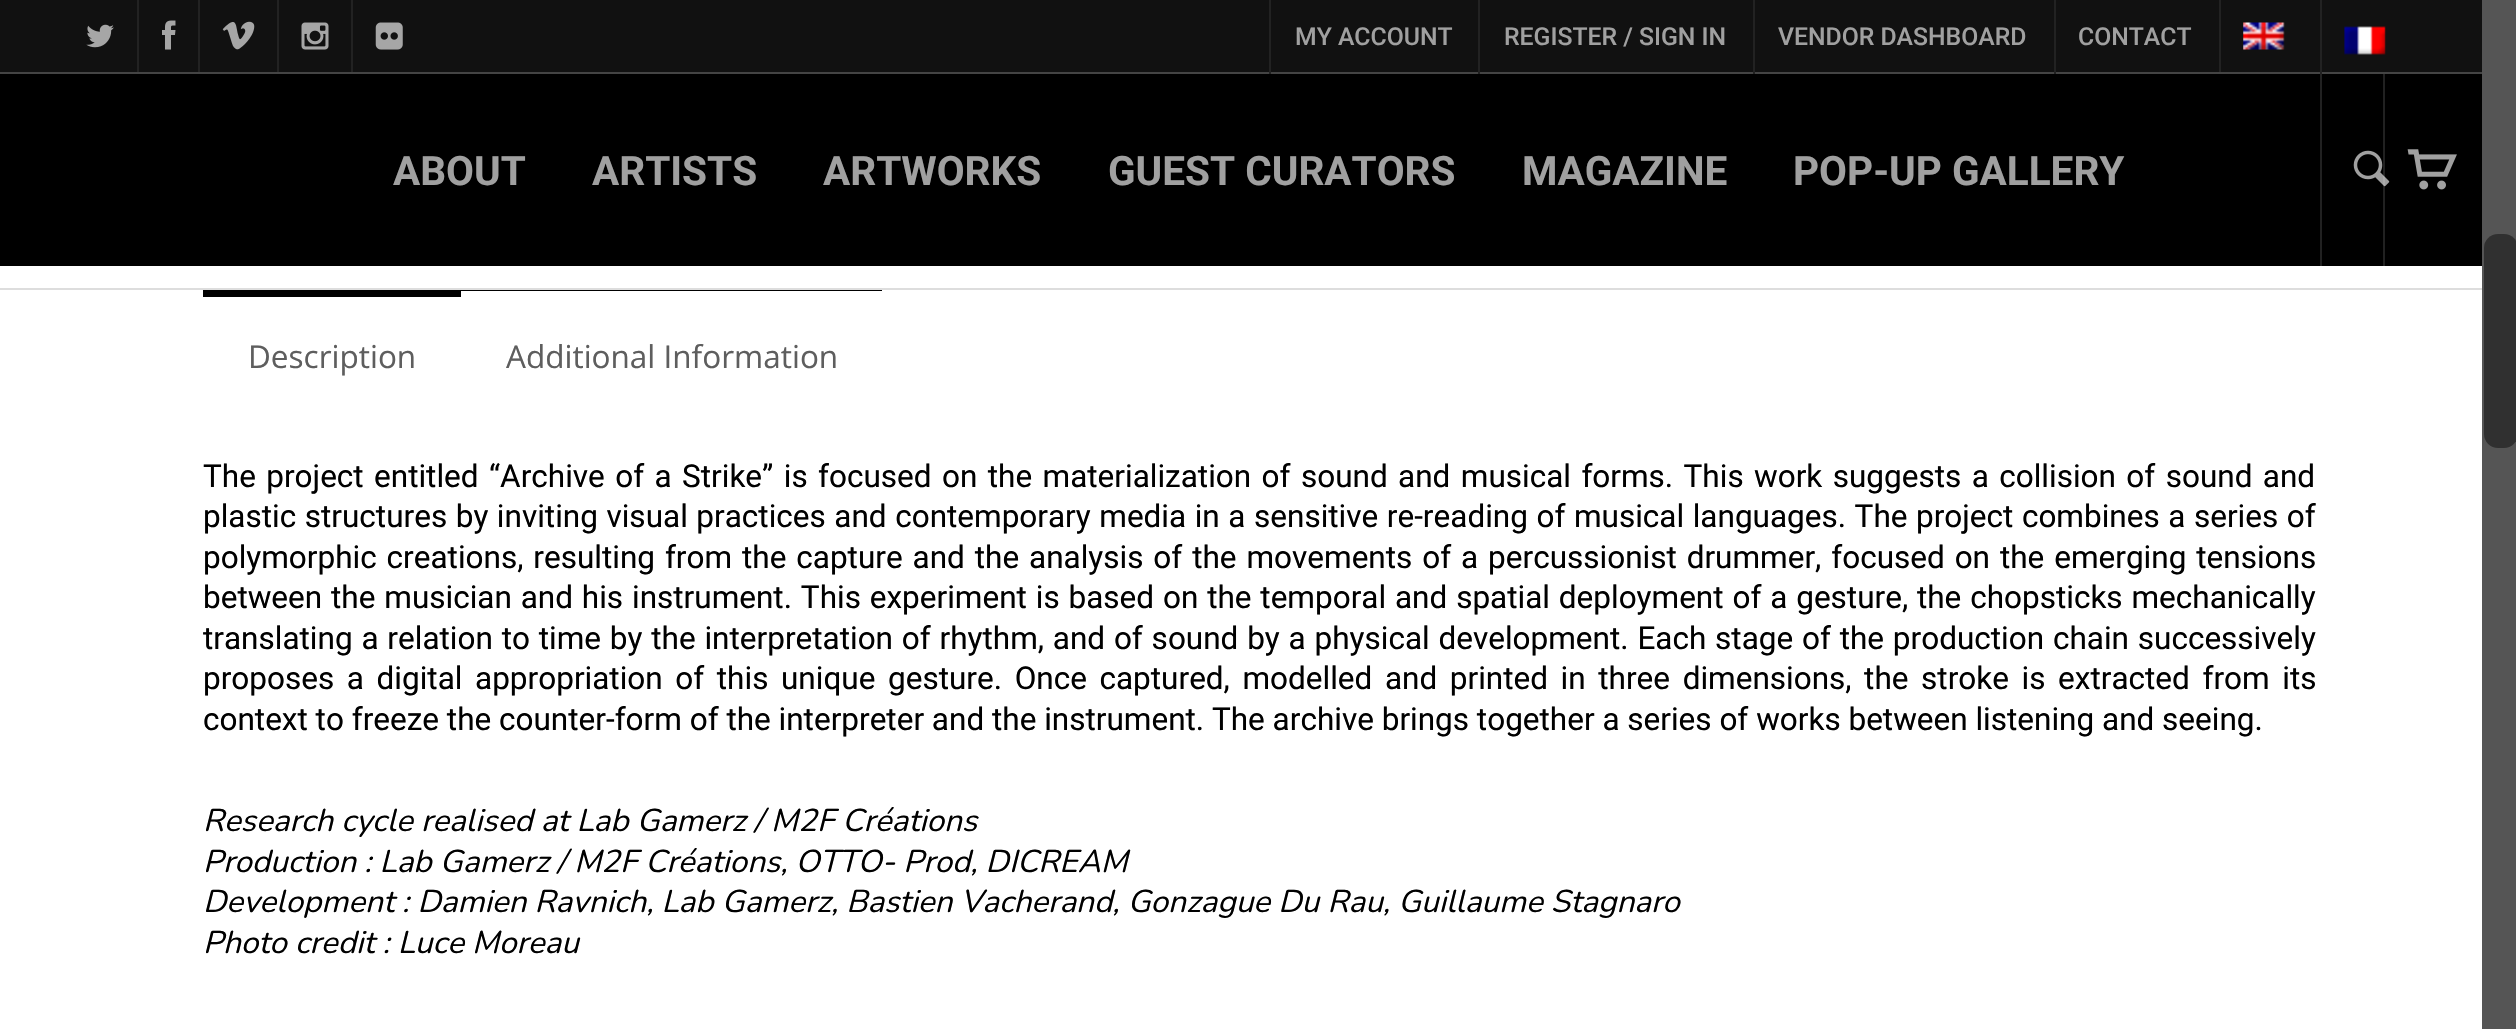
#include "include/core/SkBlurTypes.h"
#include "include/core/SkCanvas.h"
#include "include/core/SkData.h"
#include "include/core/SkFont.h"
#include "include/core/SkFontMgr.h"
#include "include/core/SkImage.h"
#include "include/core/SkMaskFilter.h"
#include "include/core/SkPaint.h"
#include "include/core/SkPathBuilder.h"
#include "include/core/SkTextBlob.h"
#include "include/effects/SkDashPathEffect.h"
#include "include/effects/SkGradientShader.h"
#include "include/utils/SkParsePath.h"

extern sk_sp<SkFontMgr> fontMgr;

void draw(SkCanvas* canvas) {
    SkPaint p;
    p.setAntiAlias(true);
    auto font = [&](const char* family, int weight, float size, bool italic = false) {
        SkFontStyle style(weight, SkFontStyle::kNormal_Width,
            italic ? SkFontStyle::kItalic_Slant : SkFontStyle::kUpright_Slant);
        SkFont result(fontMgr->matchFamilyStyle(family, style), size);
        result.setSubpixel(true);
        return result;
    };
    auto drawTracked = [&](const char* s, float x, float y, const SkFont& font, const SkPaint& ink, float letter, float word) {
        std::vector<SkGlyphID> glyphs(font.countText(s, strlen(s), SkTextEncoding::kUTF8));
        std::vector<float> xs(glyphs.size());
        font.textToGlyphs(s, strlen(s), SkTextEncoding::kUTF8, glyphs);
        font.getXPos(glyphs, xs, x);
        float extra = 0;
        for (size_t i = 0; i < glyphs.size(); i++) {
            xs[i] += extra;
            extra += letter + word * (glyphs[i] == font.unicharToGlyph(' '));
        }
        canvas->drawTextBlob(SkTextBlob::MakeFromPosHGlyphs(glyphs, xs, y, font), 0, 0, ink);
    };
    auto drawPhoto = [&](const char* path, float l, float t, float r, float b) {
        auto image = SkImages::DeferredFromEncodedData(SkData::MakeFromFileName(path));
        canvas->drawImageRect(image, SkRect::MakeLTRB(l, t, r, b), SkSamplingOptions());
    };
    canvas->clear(0xFFFFFFFF);
    p.setColor(0xFF111111);
    canvas->drawRect(SkRect::MakeLTRB(0, 0, 2482, 72), p);
    p.setColor(0xFF444444);
    canvas->drawRect(SkRect::MakeLTRB(0, 72, 2482, 74), p);
    drawPhoto("media/1.png", 86, 24, 114, 48);
    p.setColor(0xFF222222);
    canvas->drawRect(SkRect::MakeLTRB(137, 0, 139, 72), p);
    drawPhoto("media/2.png", 162, 20, 176, 50);
    canvas->drawRect(SkRect::MakeLTRB(198, 0, 200, 72), p);
    drawPhoto("media/3.png", 222, 21, 255, 50);
    canvas->drawRect(SkRect::MakeLTRB(277, 0, 279, 72), p);
    drawPhoto("media/4.png", 301, 22, 329, 50);
    canvas->drawRect(SkRect::MakeLTRB(351, 0, 353, 72), p);
    drawPhoto("media/5.png", 375, 22, 403, 50);
    canvas->drawRect(SkRect::MakeLTRB(1269, 0, 1271, 74), p);
    auto font1 = font("Roboto", 500, 24.75f);
    p.setColor(0xFFA0A0A0);
    canvas->drawString("MY ACCOUNT", 1295, 45, font1, p);
    p.setColor(0xFF222222);
    canvas->drawRect(SkRect::MakeLTRB(1478, 0, 1480, 74), p);
    p.setColor(0xFFA0A0A0);
    canvas->drawString("REGISTER / SIGN IN", 1504, 45, font1, p);
    p.setColor(0xFF222222);
    canvas->drawRect(SkRect::MakeLTRB(1753, 0, 1755, 74), p);
    p.setColor(0xFFA0A0A0);
    canvas->drawString("VENDOR DASHBOARD", 1778, 45, font1, p);
    p.setColor(0xFF222222);
    canvas->drawRect(SkRect::MakeLTRB(2054, 0, 2056, 74), p);
    p.setColor(0xFFA0A0A0);
    canvas->drawString("CONTACT", 2078, 45, font1, p);
    p.setColor(0xFF222222);
    canvas->drawRect(SkRect::MakeLTRB(2219, 0, 2221, 72), p);
    drawPhoto("media/6.png", 2243, 22, 2285, 50);
    {
        const struct { float l, t, r, b; SkColor color; } items[] = {
            {0, 74, 2482, 266, 0xFF000000},
            {2320, 74, 2322, 266, 0xFF212121},
            {2320, 0, 2322, 79, 0xFF222222},
        };
        for (auto [l, t, r, b, color] : items) {
            p.setColor(color);
            canvas->drawRect(SkRect::MakeLTRB(l, t, r, b), p);
        }
    }
    drawPhoto("media/7.png", 2344, 26, 2386, 55);
    p.setColor(0xFF555555);
    canvas->drawRect(SkRect::MakeLTRB(2482, 0, 2516, 1029), p);
    p.setColor(0xFF303030);
    canvas->drawRoundRect(SkRect::MakeLTRB(2484, 234, 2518, 448), 14, 14, p);
    auto font2 = font("Roboto", 700, 40.5f);
    p.setColor(0xFFA0A0A0);
    {
        const struct { const char* s; float x, y; } items[] = {
            {"ABOUT", 393, 185},
            {"ARTISTS", 592, 185},
            {"ARTWORKS", 823, 185},
            {"GUEST CURATORS", 1108, 185},
            {"MAGAZINE", 1522, 185},
            {"POP-UP GALLERY", 1793, 185},
        };
        for (auto [s, x, y] : items) {
            canvas->drawString(s, x, y, font2, p);
        }
    }
    drawPhoto("media/8.png", 2353, 150, 2390, 187);
    p.setColor(0x21FFFFFF);
    canvas->drawRect(SkRect::MakeLTRB(2383, 74, 2385, 266), p);
    drawPhoto("media/9.png", 2407, 149, 2457, 190);
    p.setColor(0xFFDDDDDD);
    canvas->drawRect(SkRect::MakeLTRB(0, 288, 2482, 290), p);
    p.setColor(0xFF000000);
    canvas->drawRect(SkRect::MakeLTRB(203, 290, 461, 297), p);
    auto font3 = font("Open Sans", 400, 31.5f);
    p.setColor(0xFF5E5E5E);
    canvas->drawString("Description", 248, 368, font3, p);
    p.setColor(0xFF000000);
    canvas->drawRect(SkRect::MakeLTRB(461, 290, 882, 291), p);
    p.setColor(0xFF5E5E5E);
    canvas->drawString("Additional Information", 506, 368, font3, p);
    auto font4 = font("Roboto", 400, 31.5f);
    p.setColor(0xFF000000);
    drawTracked("The project entitled “Archive of a Strike” is focused on the materialization of sound and musical forms. This work suggests a collision of sound and", 203, 487, font4, p, 0, 2.6f);
    drawTracked("plastic structures by inviting visual practices and contemporary media in a sensitive re-reading of musical languages. The project combines a series of", 203, 527, font4, p, 0, 0.75f);
    drawTracked("polymorphic creations, resulting from the capture and the analysis of the movements of a percussionist drummer, focused on the emerging tensions", 203, 568, font4, p, 0, 2.1f);
    drawTracked("between the musician and his instrument. This experiment is based on the temporal and spatial deployment of a gesture, the chopsticks mechanically", 203, 608, font4, p, 0, 1.05f);
    drawTracked("translating a relation to time by the interpretation of rhythm, and of sound by a physical development. Each stage of the production chain successively", 203, 649, font4, p, 0, 1);
    drawTracked("proposes a digital appropriation of this unique gesture. Once captured, modelled and printed in three dimensions, the stroke is extracted from its", 203, 689, font4, p, 0, 4.8f);
    canvas->drawString("context to freeze the counter-form of the interpreter and the instrument. The archive brings together a series of works between listening and seeing.", 203, 730, font4, p);
    auto font5 = font("Nunito", 200, 31.5f, true);
    {
        const struct { const char* s; float x, y; } items[] = {
            {"Research cycle realised at Lab Gamerz / M2F Créations", 203, 831},
            {"Production : Lab Gamerz / M2F Créations, OTTO- Prod, DICREAM", 203, 872},
            {"Development : Damien Ravnich, Lab Gamerz, Bastien Vacherand, Gonzague Du Rau, Guillaume Stagnaro", 203, 912},
            {"Photo credit : Luce Moreau", 203, 953},
        };
        for (auto [s, x, y] : items) {
            canvas->drawString(s, x, y, font5, p);
        }
    }
}
